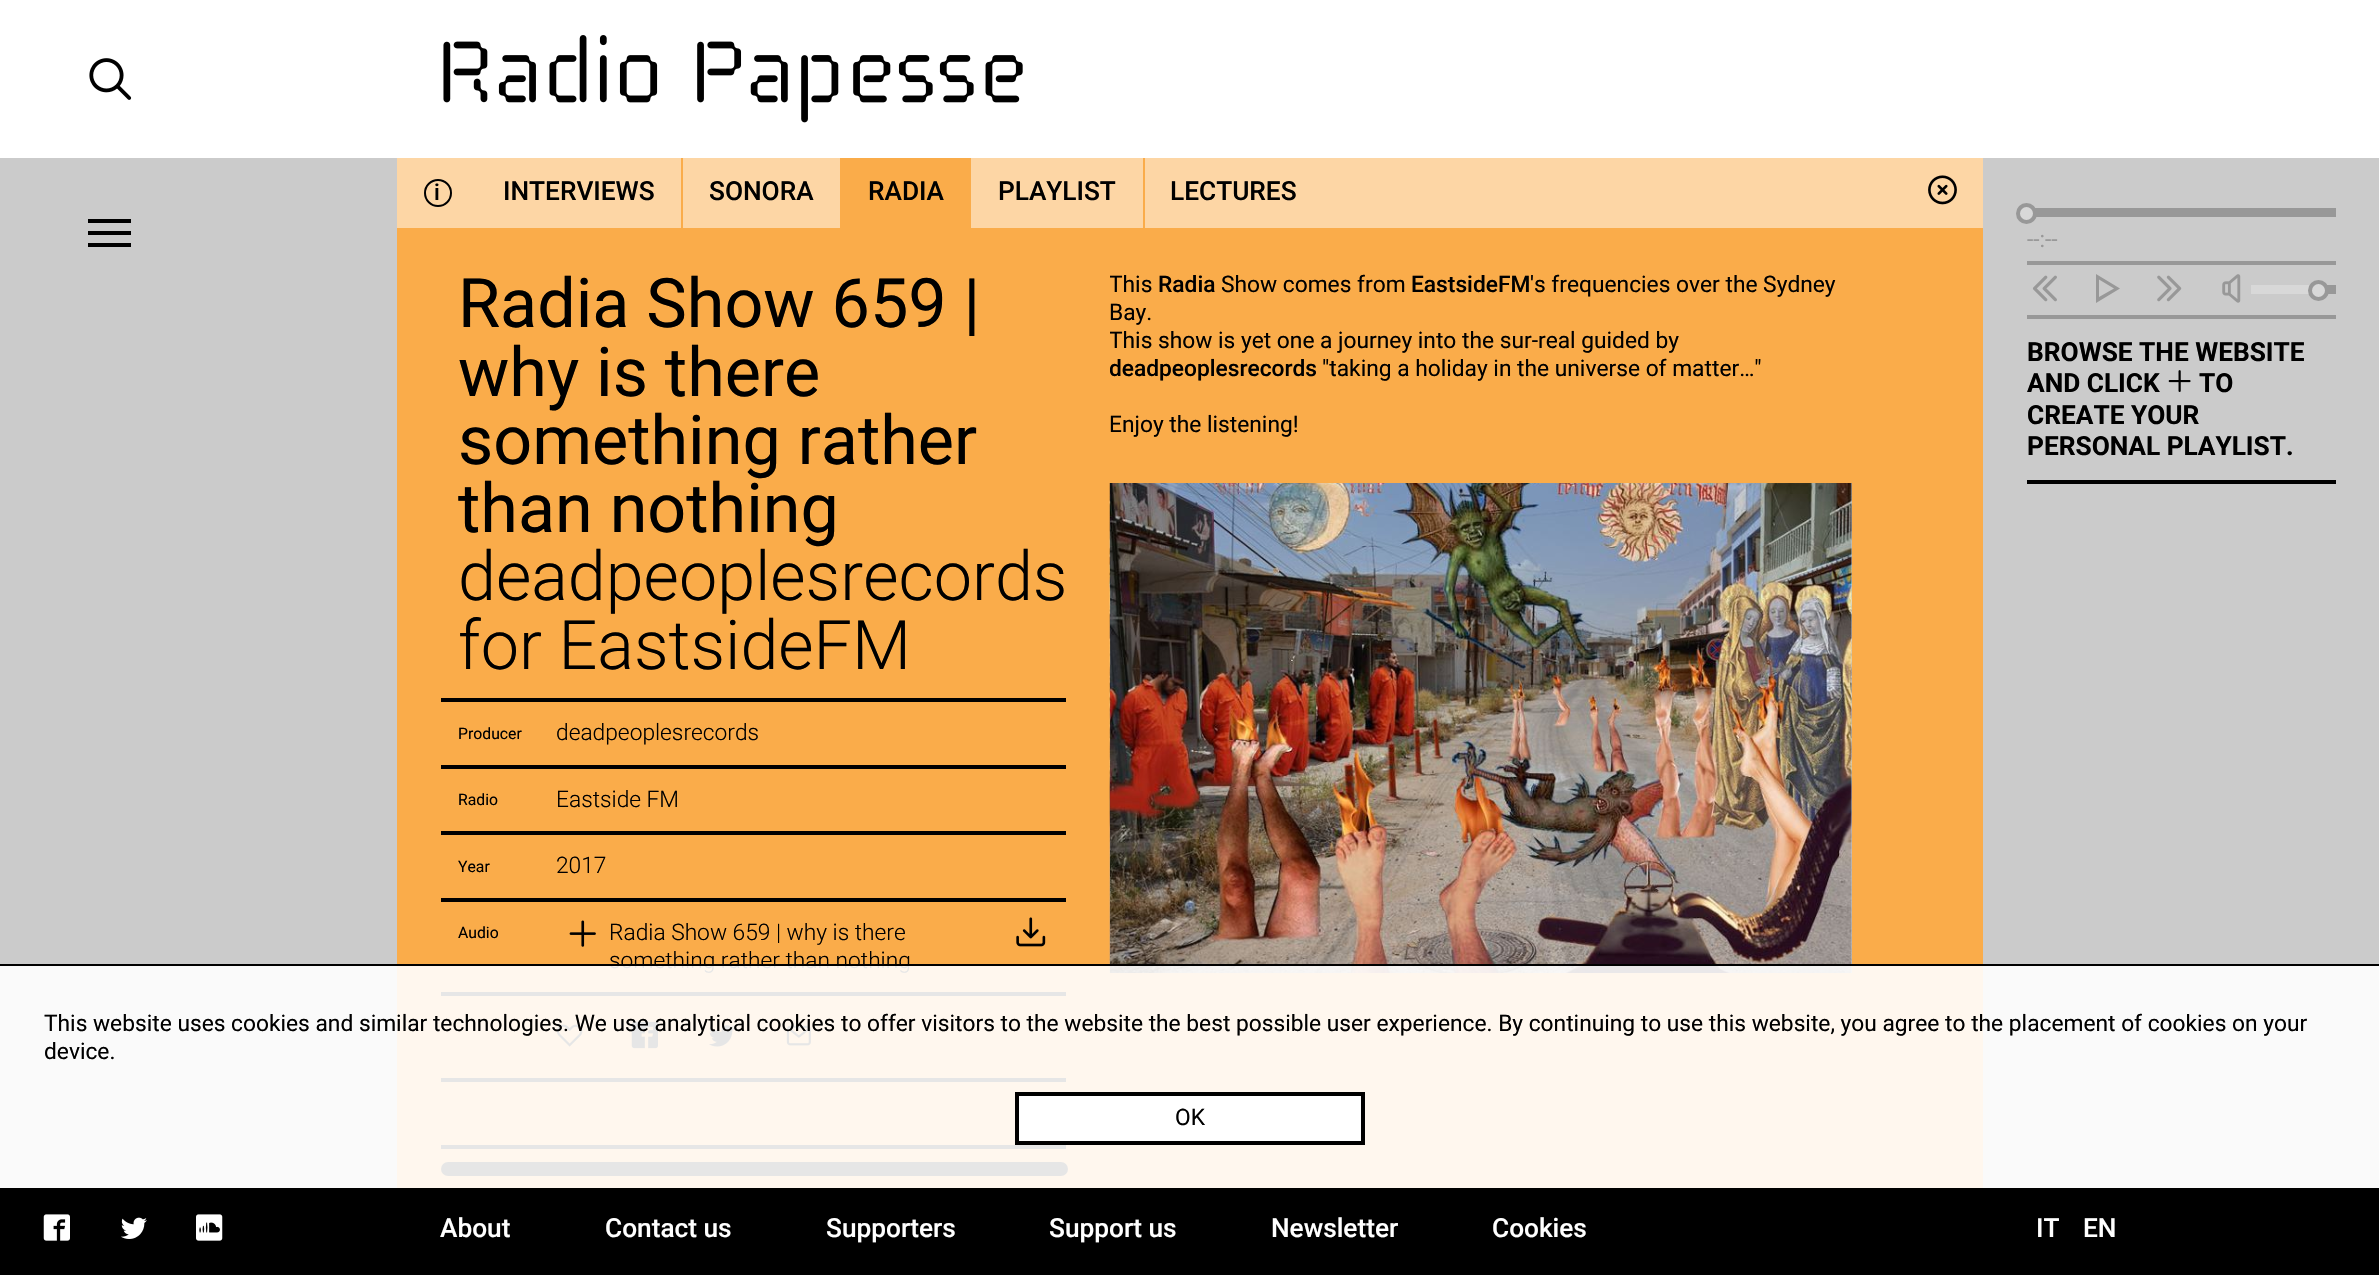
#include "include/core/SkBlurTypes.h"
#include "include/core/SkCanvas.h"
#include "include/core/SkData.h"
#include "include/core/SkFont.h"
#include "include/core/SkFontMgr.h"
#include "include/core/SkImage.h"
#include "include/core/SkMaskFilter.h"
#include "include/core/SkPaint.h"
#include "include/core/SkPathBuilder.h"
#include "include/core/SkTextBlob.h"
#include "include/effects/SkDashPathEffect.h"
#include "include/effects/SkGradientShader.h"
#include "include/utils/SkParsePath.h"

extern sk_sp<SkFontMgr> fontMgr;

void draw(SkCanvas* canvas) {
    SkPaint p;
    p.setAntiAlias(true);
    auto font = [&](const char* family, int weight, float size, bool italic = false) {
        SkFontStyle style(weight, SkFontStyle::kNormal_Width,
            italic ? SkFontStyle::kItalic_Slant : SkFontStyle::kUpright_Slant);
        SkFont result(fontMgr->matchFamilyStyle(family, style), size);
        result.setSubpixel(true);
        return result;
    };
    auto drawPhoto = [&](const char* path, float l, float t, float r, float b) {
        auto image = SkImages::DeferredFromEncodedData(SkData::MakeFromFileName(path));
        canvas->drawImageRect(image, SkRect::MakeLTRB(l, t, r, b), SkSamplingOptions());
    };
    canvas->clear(0xFFFFFFFF);
    drawPhoto("media/1.png", 89, 58, 132, 100);
    drawPhoto("media/2.png", 443, 35, 1023, 123);
    {
        const struct { float l, t, r, b; SkColor color; } items[] = {
            {0, 158, 397, 1188, 0xFFCBCBCB},
            {88, 219, 131, 223, 0xFF000000},
            {88, 231, 131, 235, 0xFF000000},
            {88, 243, 131, 247, 0xFF000000},
            {397, 228, 1983, 1188, 0xFFFAAC4A},
            {397, 158, 1983, 228, 0xFFFDD6A5},
        };
        for (auto [l, t, r, b, color] : items) {
            p.setColor(color);
            canvas->drawRect(SkRect::MakeLTRB(l, t, r, b), p);
        }
    }
    p.setStyle(SkPaint::kStroke_Style);
    p.setStrokeWidth(2);
    p.setColor(0xFF000000);
    canvas->drawCircle(438, 193, 13, p);
    auto font1 = font("Roboto", 500, 22.75f);
    p.setStyle(SkPaint::kFill_Style);
    canvas->drawString("i", 434, 200, font1, p);
    auto font2 = font("Roboto", 500, 26.25f);
    canvas->drawString("INTERVIEWS", 503, 200, font2, p);
    p.setColor(0xFFFAAC4A);
    canvas->drawRect(SkRect::MakeLTRB(681, 158, 683, 228), p);
    p.setColor(0xFF000000);
    canvas->drawString("SONORA", 709, 200, font2, p);
    p.setColor(0xFFFAAC4A);
    canvas->drawRect(SkRect::MakeLTRB(840, 158, 971, 228), p);
    p.setColor(0xFF000000);
    canvas->drawString("RADIA", 868, 200, font2, p);
    canvas->drawString("PLAYLIST", 998, 200, font2, p);
    p.setColor(0xFFFAAC4A);
    canvas->drawRect(SkRect::MakeLTRB(1143, 158, 1145, 228), p);
    p.setColor(0xFF000000);
    canvas->drawString("LECTURES", 1170, 200, font2, p);
    drawPhoto("media/3.png", 1928, 175, 1957, 205);
    canvas->drawRect(SkRect::MakeLTRB(441, 698, 1066, 702), p);
    auto font3 = font("Roboto", 400, 68.25f);
    {
        const struct { const char* s; float x, y; } items[] = {
            {"Radia Show 659 |", 458, 327},
            {"why is there", 458, 396},
            {"something rather", 458, 464},
            {"than nothing", 458, 532},
        };
        for (auto [s, x, y] : items) {
            canvas->drawString(s, x, y, font3, p);
        }
    }
    auto font4 = font("Roboto", 300, 68.25f);
    canvas->drawString("deadpeoplesrecords", 458, 600, font4, p);
    canvas->drawString("for EastsideFM", 458, 669, font4, p);
    canvas->drawRect(SkRect::MakeLTRB(441, 765, 1066, 769), p);
    auto font5 = font("Roboto", 400, 15.75f);
    canvas->drawString("Producer", 458, 739, font5, p);
    auto font6 = font("Roboto", 300, 22.75f);
    canvas->drawString("deadpeoplesrecords", 556, 740, font6, p);
    canvas->drawRect(SkRect::MakeLTRB(441, 831, 1066, 835), p);
    canvas->drawString("Radio", 458, 805, font5, p);
    canvas->drawString("Eastside FM", 556, 807, font6, p);
    canvas->drawRect(SkRect::MakeLTRB(441, 898, 1066, 902), p);
    canvas->drawString("Year", 458, 872, font5, p);
    canvas->drawString("2017", 556, 873, font6, p);
    canvas->drawRect(SkRect::MakeLTRB(441, 992, 1066, 996), p);
    canvas->drawString("Audio", 458, 938, font5, p);
    drawPhoto("media/4.png", 569, 920, 596, 947);
    canvas->drawString("Radia Show 659 | why is there", 609, 940, font6, p);
    canvas->drawString("something rather than nothing", 609, 968, font6, p);
    drawPhoto("media/5.png", 1016, 917, 1046, 947);
    canvas->drawRect(SkRect::MakeLTRB(441, 1078, 1066, 1082), p);
    drawPhoto("media/6.png", 556, 1024, 583, 1047);
    drawPhoto("media/7.png", 631, 1021, 658, 1049);
    drawPhoto("media/8.png", 709, 1025, 735, 1047);
    drawPhoto("media/9.png", 786, 1025, 811, 1046);
    canvas->drawRect(SkRect::MakeLTRB(441, 1145, 1066, 1149), p);
    canvas->drawRoundRect(SkRect::MakeLTRB(441, 1162, 1068, 1176), 7, 7, p);
    canvas->save();
    canvas->clipRect(SkRect::MakeLTRB(1110, 271, 1887, 1045));
    auto font7 = font("Roboto", 400, 22.75f);
    canvas->drawString("This", 1109, 292, font7, p);
    canvas->restore();
    canvas->drawString("Radia", 1158, 292, font1, p);
    canvas->drawString("Show comes from", 1221, 292, font7, p);
    canvas->drawString("EastsideFM", 1411, 292, font1, p);
    canvas->drawString("'s frequencies over the Sydney", 1530, 292, font7, p);
    canvas->drawString("Bay.", 1109, 320, font7, p);
    canvas->save();
    canvas->clipRect(SkRect::MakeLTRB(1110, 271, 1887, 1045));
    canvas->drawString("This show is yet one a journey into the sur-real guided by", 1109, 348, font7, p);
    canvas->drawString("deadpeoplesrecords", 1109, 376, font1, p);
    canvas->restore();
    canvas->drawString("\"taking a holiday in the universe of matter…\"", 1322, 376, font7, p);
    canvas->drawString("Enjoy the listening!", 1109, 432, font7, p);
    p.setColor(0xFFCBCBCB);
    canvas->drawRect(SkRect::MakeLTRB(1851, 483, 1852, 973), p);
    drawPhoto("media/10.png", 1109, 483, 1852, 973);
    {
        const struct { float l, t, r, b; SkColor color; } items[] = {
            {1983, 158, 2379, 1188, 0xFFCBCBCB},
            {2027, 315, 2336, 319, 0xFF989898},
            {2027, 261, 2336, 265, 0xFF989898},
            {2035, 208, 2336, 217, 0xFF989898},
        };
        for (auto [l, t, r, b, color] : items) {
            p.setColor(color);
            canvas->drawRect(SkRect::MakeLTRB(l, t, r, b), p);
        }
    }
    p.setColor(0xFFD8D8D8);
    canvas->drawCircle(2026.5f, 213.5f, 8.5f, p);
    p.setStyle(SkPaint::kStroke_Style);
    p.setStrokeWidth(4);
    p.setColor(0xFF989898);
    canvas->drawCircle(2026.5f, 213.5f, 8.5f, p);
    p.setStyle(SkPaint::kFill_Style);
    canvas->drawString("--:--", 2027, 247, font7, p);
    drawPhoto("media/11.png", 2032, 275, 2057, 302);
    canvas->drawPath(SkPathBuilder().moveTo(2096, 303).lineTo(2096, 274).lineTo(2120, 288.5f).close().moveTo(2114, 288.5f).lineTo(2099, 279.5f).lineTo(2099, 297).close().detach(), p);
    drawPhoto("media/12.png", 2157, 275, 2182, 302);
    drawPhoto("media/13.png", 2222, 274, 2241, 303);
    canvas->drawRect(SkRect::MakeLTRB(2327, 285, 2336, 294), p);
    p.setColor(0xFFD8D8D8);
    canvas->drawRect(SkRect::MakeLTRB(2251, 285, 2310, 294), p);
    canvas->drawCircle(2318.5f, 290.5f, 8.5f, p);
    p.setStyle(SkPaint::kStroke_Style);
    p.setColor(0xFF989898);
    canvas->drawCircle(2318.5f, 290.5f, 8.5f, p);
    p.setStyle(SkPaint::kFill_Style);
    p.setColor(0xFF000000);
    canvas->drawRect(SkRect::MakeLTRB(2027, 480, 2336, 484), p);
    auto font8 = font("Roboto", 700, 26.25f);
    canvas->drawString("BROWSE THE WEBSITE", 2027, 361, font8, p);
    canvas->drawString("AND CLICK", 2027, 392, font8, p);
    drawPhoto("media/14.png", 2168, 370, 2191, 392);
    {
        const struct { const char* s; float x, y; } items[] = {
            {"TO", 2199, 392},
            {"CREATE YOUR", 2027, 424},
            {"PERSONAL PLAYLIST.", 2027, 455},
        };
        for (auto [s, x, y] : items) {
            canvas->drawString(s, x, y, font8, p);
        }
    }
    canvas->drawRect(SkRect::MakeLTRB(0, 1188, 2379, 1275), p);
    drawPhoto("media/15.png", 43, 1214, 70, 1241);
    drawPhoto("media/16.png", 121, 1217, 147, 1239);
    drawPhoto("media/17.png", 196, 1214, 223, 1241);
    p.setColor(0xFFFFFFFF);
    {
        const struct { const char* s; float x, y; } items[] = {
            {"About", 440, 1237},
            {"Contact us", 605, 1237},
            {"Supporters", 826, 1237},
            {"Support us", 1049, 1237},
            {"Newsletter", 1271, 1237},
            {"Cookies", 1492, 1237},
            {"IT", 2036, 1237},
            {"EN", 2083, 1237},
        };
        for (auto [s, x, y] : items) {
            canvas->drawString(s, x, y, font2, p);
        }
    }
    p.setColor(0xE6FFFFFF);
    canvas->drawRect(SkRect::MakeLTRB(0, 966, 2379, 1188), p);
    p.setColor(0xFF000000);
    canvas->drawRect(SkRect::MakeLTRB(0, 964, 2379, 966), p);
    canvas->drawString("This website uses cookies and similar technologies. We use analytical cookies to offer visitors to the website the best possible user experience. By continuing to use this website, you agree to the placement of cookies on your", 44, 1031, font7, p);
    canvas->drawString("device.", 44, 1059, font7, p);
    p.setColor(0xFFFFFFFF);
    canvas->drawRect(SkRect::MakeLTRB(1017, 1094, 1363, 1143), p);
    p.setStyle(SkPaint::kStroke_Style);
    p.setColor(0xFF000000);
    canvas->drawRect(SkRect::MakeLTRB(1017, 1094, 1363, 1143), p);
    p.setStyle(SkPaint::kFill_Style);
    canvas->drawString("OK", 1175, 1125, font7, p);
}
